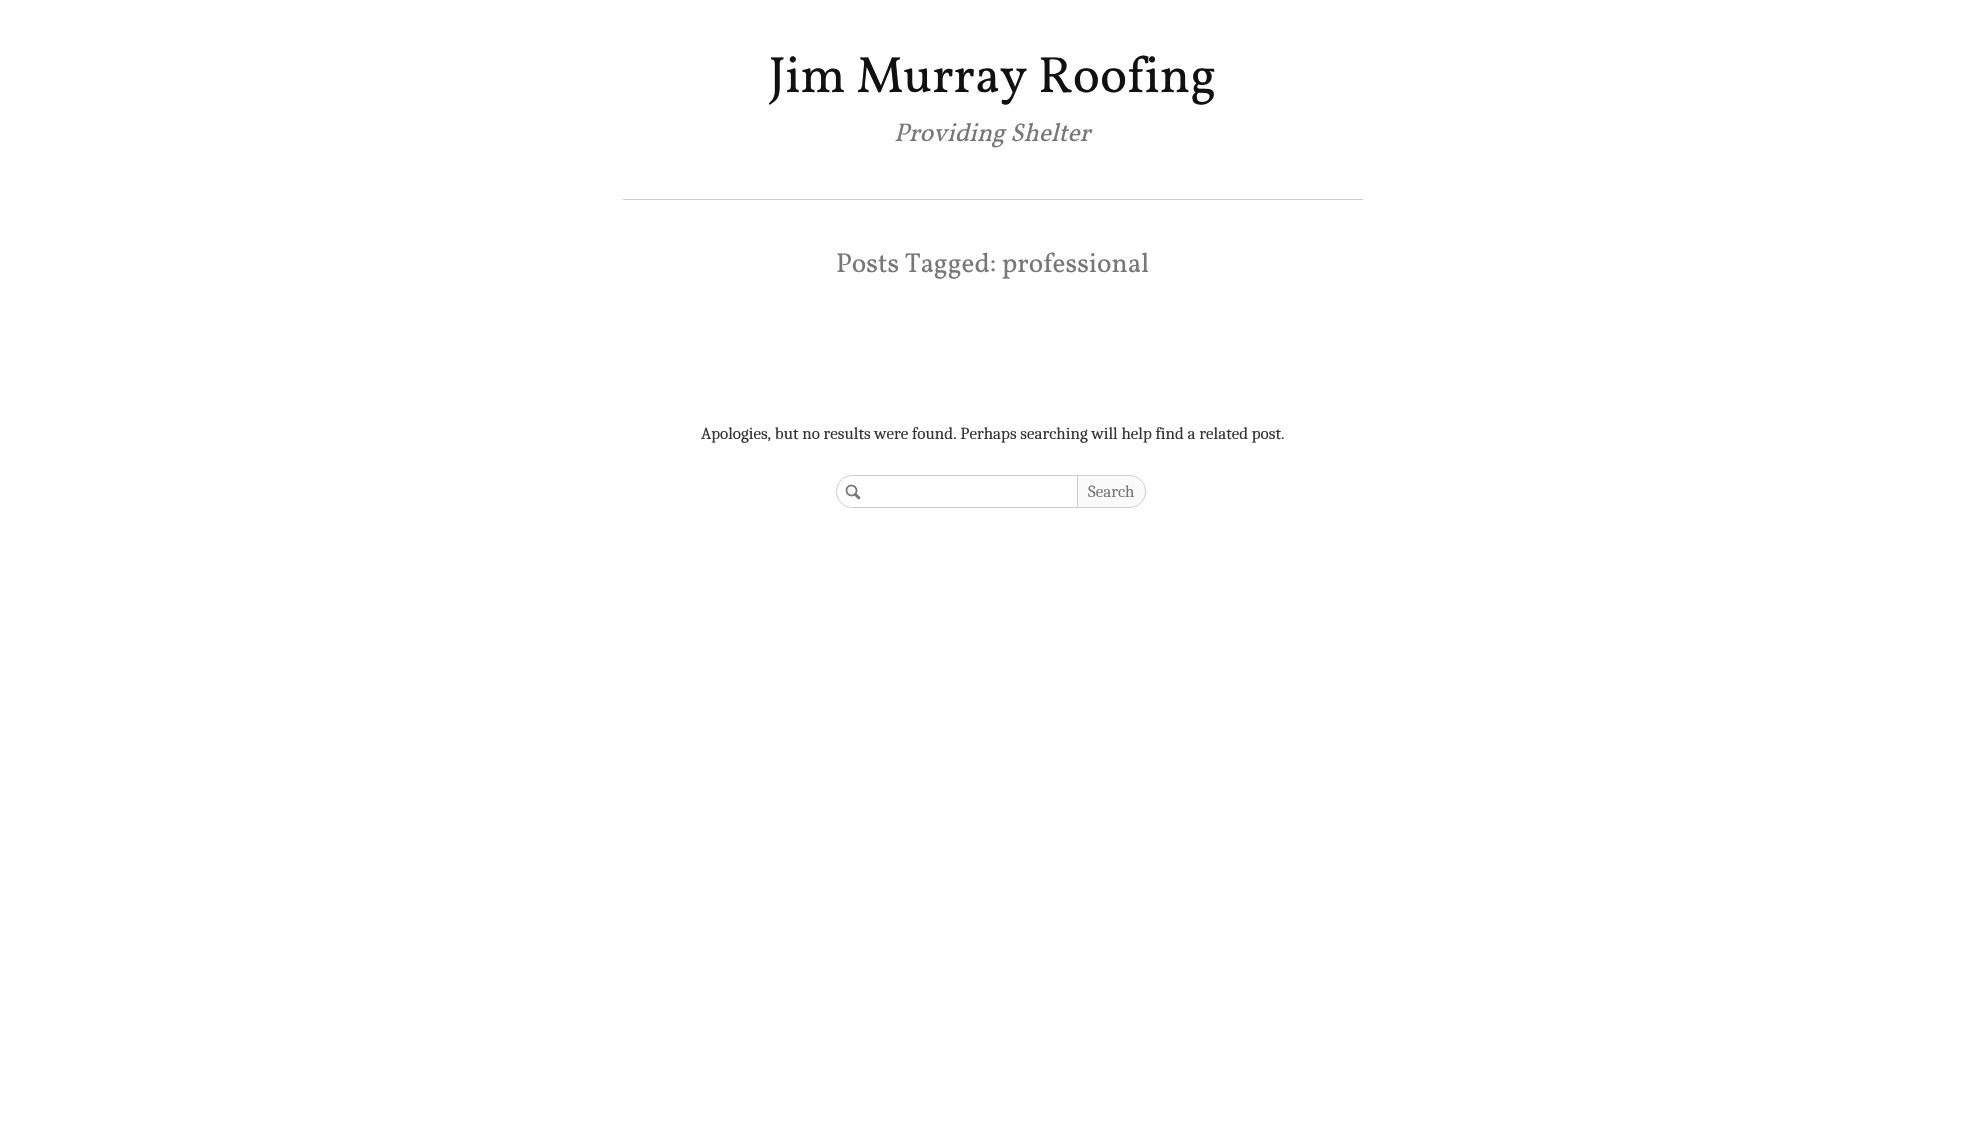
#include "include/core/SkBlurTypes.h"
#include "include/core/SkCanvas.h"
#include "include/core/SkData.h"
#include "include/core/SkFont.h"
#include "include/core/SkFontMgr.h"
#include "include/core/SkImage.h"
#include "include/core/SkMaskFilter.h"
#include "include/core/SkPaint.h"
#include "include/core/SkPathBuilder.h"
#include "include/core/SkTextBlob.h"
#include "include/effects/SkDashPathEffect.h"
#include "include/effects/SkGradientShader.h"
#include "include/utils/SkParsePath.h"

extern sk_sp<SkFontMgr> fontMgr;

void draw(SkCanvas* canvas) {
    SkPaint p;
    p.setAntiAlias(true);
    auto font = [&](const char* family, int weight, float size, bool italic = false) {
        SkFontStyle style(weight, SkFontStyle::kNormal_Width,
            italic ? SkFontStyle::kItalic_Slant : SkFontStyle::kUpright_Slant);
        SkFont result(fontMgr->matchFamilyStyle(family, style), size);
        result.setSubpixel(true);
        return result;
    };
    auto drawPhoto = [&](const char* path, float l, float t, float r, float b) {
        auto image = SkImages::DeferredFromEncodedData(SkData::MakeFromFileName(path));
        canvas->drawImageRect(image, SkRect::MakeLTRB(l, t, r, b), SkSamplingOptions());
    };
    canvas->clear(0xFFFFFFFF);
    p.setColor(0xFFCCCCCC);
    canvas->drawRect(SkRect::MakeLTRB(623, 199, 1363, 200), p);
    auto font1 = font("Vollkorn", 400, 51);
    p.setColor(0xFF111111);
    canvas->drawString("Jim Murray Roofing", 768, 92, font1, p);
    auto font2 = font("Vollkorn", 400, 25.5f, true);
    p.setColor(0xFF777777);
    canvas->drawString("Providing Shelter", 894, 141, font2, p);
    auto font3 = font("Vollkorn", 400, 27.25f);
    canvas->drawString("Posts Tagged: professional", 836, 272, font3, p);
    auto font4 = font("Caladea", 400, 17);
    p.setColor(0xFF333333);
    canvas->drawString("Apologies, but no results were found. Perhaps searching will help find a related post.", 701, 439, font4, p);
    drawPhoto("media/1.png", 845, 484, 861, 500);
    p.setStyle(SkPaint::kStroke_Style);
    p.setStrokeWidth(1);
    p.setColor(0xFFCCCCCC);
    canvas->drawPath(SkPathBuilder().moveTo(852.5f, 475.5f).lineTo(1079.5f, 475.5f).lineTo(1079.5f, 507.5f).lineTo(852.5f, 507.5f).cubicTo(843.5f, 507.5f, 836.5f, 500.5f, 836.5f, 491.5f).cubicTo(836.5f, 482.5f, 843.5f, 475.5f, 852.5f, 475.5f).close().detach(), p);
    p.setStyle(SkPaint::kFill_Style);
    p.setColor(0xFFFAFAFA);
    canvas->drawPath(SkPathBuilder().moveTo(1077.5f, 475.5f).lineTo(1129.5f, 475.5f).cubicTo(1138.5f, 475.5f, 1145.5f, 482.5f, 1145.5f, 491.5f).cubicTo(1145.5f, 500.5f, 1138.5f, 507.5f, 1129.5f, 507.5f).lineTo(1077.5f, 507.5f).close().detach(), p);
    p.setStyle(SkPaint::kStroke_Style);
    p.setColor(0xFFCCCCCC);
    canvas->drawPath(SkPathBuilder().moveTo(1077.5f, 475.5f).lineTo(1129.5f, 475.5f).cubicTo(1138.5f, 475.5f, 1145.5f, 482.5f, 1145.5f, 491.5f).cubicTo(1145.5f, 500.5f, 1138.5f, 507.5f, 1129.5f, 507.5f).lineTo(1077.5f, 507.5f).close().detach(), p);
    p.setStyle(SkPaint::kFill_Style);
    p.setColor(0xFF777777);
    canvas->drawString("Search", 1088, 497, font4, p);
}
